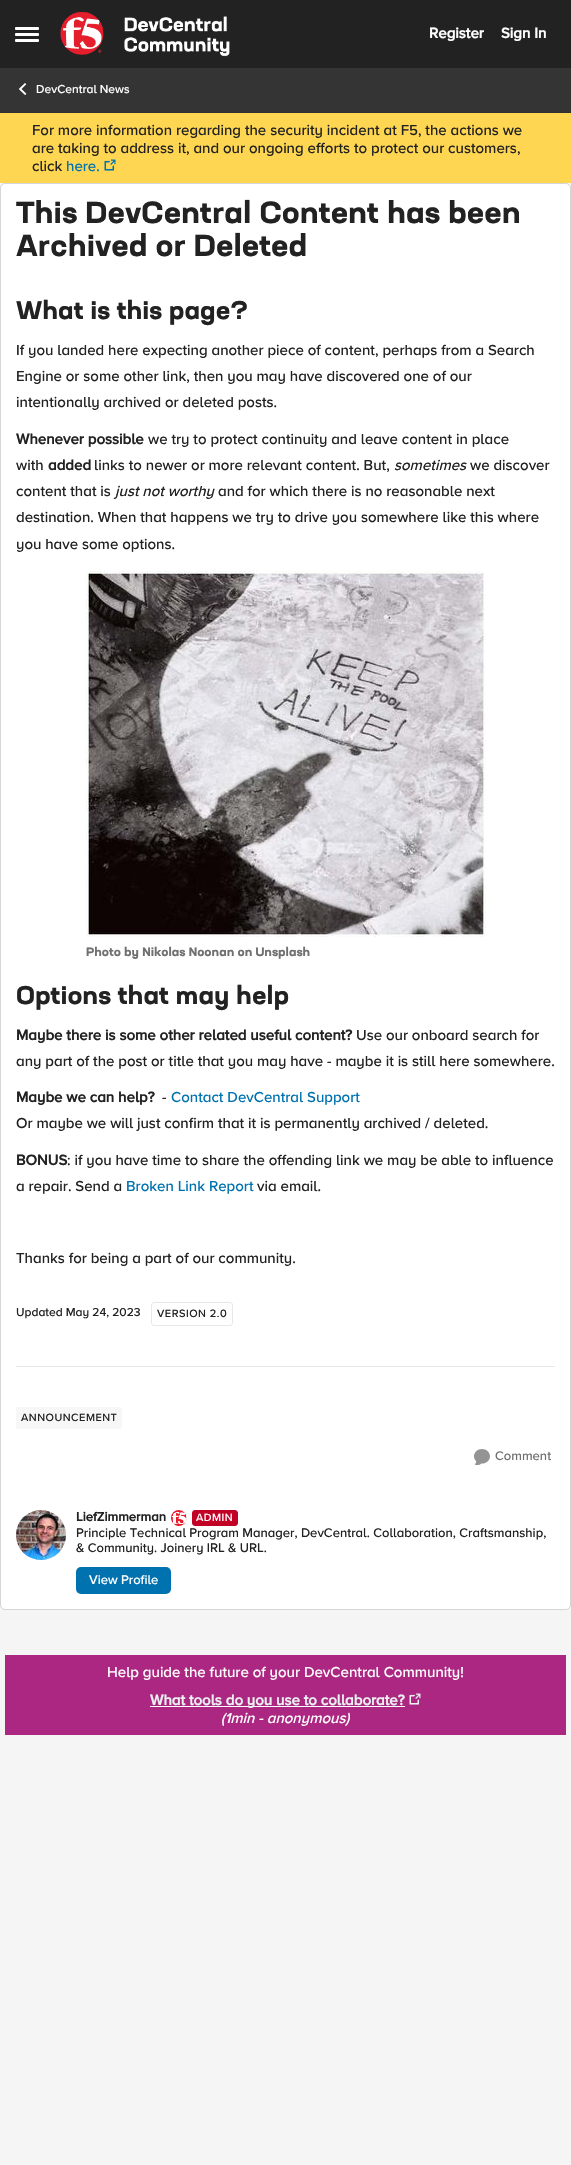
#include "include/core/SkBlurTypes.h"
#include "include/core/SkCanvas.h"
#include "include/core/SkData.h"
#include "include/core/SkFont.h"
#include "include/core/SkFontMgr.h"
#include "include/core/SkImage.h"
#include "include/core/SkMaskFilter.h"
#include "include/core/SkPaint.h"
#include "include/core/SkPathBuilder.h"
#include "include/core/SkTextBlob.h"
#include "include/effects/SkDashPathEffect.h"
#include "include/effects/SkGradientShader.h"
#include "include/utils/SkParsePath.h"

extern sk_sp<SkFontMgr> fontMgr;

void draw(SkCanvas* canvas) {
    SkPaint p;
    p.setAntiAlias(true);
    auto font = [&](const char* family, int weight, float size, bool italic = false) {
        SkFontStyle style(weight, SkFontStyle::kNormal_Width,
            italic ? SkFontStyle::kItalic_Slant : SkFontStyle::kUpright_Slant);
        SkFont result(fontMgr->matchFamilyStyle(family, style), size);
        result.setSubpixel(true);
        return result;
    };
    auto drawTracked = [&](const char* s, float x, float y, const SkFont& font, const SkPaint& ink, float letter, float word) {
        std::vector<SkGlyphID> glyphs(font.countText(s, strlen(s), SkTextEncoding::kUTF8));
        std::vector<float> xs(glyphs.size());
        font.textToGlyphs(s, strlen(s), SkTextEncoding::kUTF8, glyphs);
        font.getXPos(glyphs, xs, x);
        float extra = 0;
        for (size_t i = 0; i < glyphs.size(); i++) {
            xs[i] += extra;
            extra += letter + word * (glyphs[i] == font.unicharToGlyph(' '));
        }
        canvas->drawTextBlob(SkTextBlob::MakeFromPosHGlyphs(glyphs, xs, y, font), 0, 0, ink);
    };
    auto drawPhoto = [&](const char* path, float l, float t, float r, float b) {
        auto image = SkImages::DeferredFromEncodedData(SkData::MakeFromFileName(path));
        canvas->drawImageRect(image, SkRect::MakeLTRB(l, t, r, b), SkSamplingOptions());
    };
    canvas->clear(0xFFF5F5F5);
    p.setColor(0xFF343434);
    canvas->drawRect(SkRect::MakeLTRB(0, 68, 571, 112), p);
    p.setColor(0xFF222222);
    canvas->drawRect(SkRect::MakeLTRB(0, 0, 571, 68), p);
    p.setColor(0xFFFFFFFF);
    canvas->drawRoundRect(SkRect::MakeLTRB(15, 27, 39, 30), 1, 1, p);
    canvas->drawRoundRect(SkRect::MakeLTRB(15, 33, 39, 36), 1, 1, p);
    canvas->drawRoundRect(SkRect::MakeLTRB(15, 39, 39, 42), 1, 1, p);
    drawPhoto("media/1.png", 60, 12, 230, 57);
    auto font1 = font("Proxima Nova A", 700, 15);
    canvas->drawString("Register", 429, 38, font1, p);
    canvas->drawString("Sign In", 501, 38, font1, p);
    p.setColor(0xFF303030);
    canvas->drawRect(SkRect::MakeLTRB(0, 112, 571, 113), p);
    drawPhoto("media/2.png", 19, 83, 27, 95);
    auto font2 = font("Proxima Nova A", 500, 12);
    p.setColor(0xFFFFFFFF);
    canvas->drawString("DevCentral News", 36, 93, font2, p);
    p.setColor(0xFFFFD651);
    canvas->drawRect(SkRect::MakeLTRB(0, 113, 571, 183), p);
    auto font3 = font("Proxima Nova A", 500, 15);
    p.setColor(0xFF222222);
    {
        const struct { const char* s; float x, y; } items[] = {
            {"For more information regarding the security incident at F5, the actions we", 32, 135},
            {"are taking to address it, and our ongoing efforts to protect our customers,", 32, 153},
            {"click", 32, 171},
        };
        for (auto [s, x, y] : items) {
            canvas->drawString(s, x, y, font3, p);
        }
    }
    p.setColor(0xFF0072B0);
    canvas->drawString("here.", 66, 171, font3, p);
    drawPhoto("media/3.png", 104, 159, 116, 171);
    p.setColor(0xFFFFFFFF);
    canvas->drawRoundRect(SkRect::MakeLTRB(0, 183, 571, 1610), 5, 5, p);
    p.setStyle(SkPaint::kStroke_Style);
    p.setStrokeWidth(1);
    p.setColor(0x29000000);
    canvas->drawRoundRect(SkRect::MakeLTRB(0.5f, 183.5f, 570.5f, 1609.5f), 4.5f, 4.5f, p);
    auto font4 = font("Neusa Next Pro", 700, 30);
    p.setStyle(SkPaint::kFill_Style);
    p.setColor(0xFF222222);
    canvas->drawString("This DevCentral Content has been", 16, 223, font4, p);
    canvas->drawString("Archived or Deleted", 16, 256, font4, p);
    auto font5 = font("Neusa Next Pro", 700, 25);
    canvas->drawString("What is this page?", 16, 319, font5, p);
    {
        const struct { const char* s; float x, y; } items[] = {
            {"If you landed here expecting another piece of content, perhaps from a Search", 16, 355},
            {"Engine or some other link, then you may have discovered one of our", 16, 381},
            {"intentionally archived or deleted posts.", 16, 407},
        };
        for (auto [s, x, y] : items) {
            canvas->drawString(s, x, y, font3, p);
        }
    }
    canvas->drawString("Whenever possible", 16, 444, font1, p);
    canvas->drawString("we try to protect continuity and leave content in place", 148, 444, font3, p);
    canvas->drawString("with", 16, 470, font3, p);
    canvas->drawString("added", 48, 470, font1, p);
    canvas->drawString("links to newer or more relevant content. But,", 94, 470, font3, p);
    auto font6 = font("Proxima Nova A", 500, 15, true);
    canvas->drawString("sometimes", 394, 470, font6, p);
    canvas->drawString("we discover", 470, 470, font3, p);
    canvas->drawString("content that is", 16, 496, font3, p);
    canvas->drawString("just not worthy", 115, 496, font6, p);
    {
        const struct { const char* s; float x, y; } items[] = {
            {"and for which there is no reasonable next", 218, 496},
            {"destination. When that happens we try to drive you somewhere like this where", 16, 522},
            {"you have some options.", 16, 549},
        };
        for (auto [s, x, y] : items) {
            canvas->drawString(s, x, y, font3, p);
        }
    }
    drawPhoto("media/4.png", 86, 571, 486, 937);
    auto font7 = font("Neusa Next Pro", 700, 12);
    p.setColor(0xFF707070);
    canvas->drawString("Photo by Nikolas Noonan on Unsplash", 86, 956, font7, p);
    p.setColor(0xFF222222);
    canvas->drawString("Options that may help", 16, 1004, font5, p);
    canvas->drawString("Maybe there is some other related useful content?", 16, 1040, font1, p);
    canvas->drawString("Use our onboard search for", 356, 1040, font3, p);
    canvas->drawString("any part of the post or title that you may have - maybe it is still here somewhere.", 16, 1066, font3, p);
    canvas->drawString("Maybe we can help?", 16, 1102, font1, p);
    canvas->drawString("-", 162, 1102, font3, p);
    p.setColor(0xFF0072B0);
    canvas->drawString("Contact DevCentral Support", 171, 1102, font3, p);
    p.setColor(0xFF222222);
    canvas->drawString("Or maybe we will just confirm that it is permanently archived / deleted.", 16, 1128, font3, p);
    canvas->drawString("BONUS", 16, 1165, font1, p);
    canvas->drawString(": if you have time to share the offending link we may be able to influence", 67, 1165, font3, p);
    canvas->drawString("a repair. Send a", 16, 1191, font3, p);
    p.setColor(0xFF0072B0);
    canvas->drawString("Broken Link Report", 126, 1191, font3, p);
    p.setColor(0xFF222222);
    canvas->drawString("via email.", 257, 1191, font3, p);
    canvas->drawString("Thanks for being a part of our community.", 16, 1263, font3, p);
    canvas->drawString("Updated May 24, 2023", 16, 1316, font2, p);
    p.setStyle(SkPaint::kStroke_Style);
    p.setColor(0xFFE8E8E8);
    canvas->drawRoundRect(SkRect::MakeLTRB(151.5f, 1302.5f, 232.5f, 1325.5f), 2.5f, 2.5f, p);
    auto font8 = font("Proxima Nova A", 500, 11);
    p.setStyle(SkPaint::kFill_Style);
    p.setColor(0xFF222222);
    drawTracked("VERSION 2.0", 157, 1317, font8, p, 0.5f, 0);
    p.setColor(0xFFE8E8E8);
    canvas->drawRect(SkRect::MakeLTRB(16, 1366, 555, 1367), p);
    p.setColor(0xFFF7F7F7);
    canvas->drawRoundRect(SkRect::MakeLTRB(16, 1407, 122, 1429), 3, 3, p);
    p.setColor(0xFF222222);
    drawTracked("ANNOUNCEMENT", 21, 1421, font8, p, 0.5f, 0);
    drawPhoto("media/5.png", 474, 1449, 490, 1465);
    auto font9 = font("Proxima Nova A", 500, 13);
    p.setColor(0xFF707070);
    canvas->drawString("Comment", 495, 1460, font9, p);
    p.setColor(0xFFD9D9D9);
    canvas->drawCircle(41, 1535, 25, p);
    drawPhoto("media/6.png", 16, 1510, 66, 1560);
    auto font10 = font("Proxima Nova A", 700, 13);
    p.setColor(0xFF222222);
    canvas->drawString("LiefZimmerman", 76, 1521, font10, p);
    drawPhoto("media/7.png", 171, 1510, 187, 1526);
    p.setColor(0xFFC20025);
    canvas->drawRoundRect(SkRect::MakeLTRB(192.5f, 1510.5f, 237.5f, 1525.5f), 2.5f, 2.5f, p);
    p.setStyle(SkPaint::kStroke_Style);
    canvas->drawRoundRect(SkRect::MakeLTRB(192.5f, 1510.5f, 237.5f, 1525.5f), 2.5f, 2.5f, p);
    p.setStyle(SkPaint::kFill_Style);
    p.setColor(0xFFFFFFFF);
    drawTracked("ADMIN", 196, 1521, font8, p, 0.5f, 0);
    p.setColor(0xFF222222);
    canvas->drawString("Principle Technical Program Manager, DevCentral. Collaboration, Craftsmanship,", 76, 1537, font9, p);
    canvas->drawString("& Community. Joinery IRL & URL.", 76, 1552, font9, p);
    p.setColor(0xFF0072B0);
    canvas->drawRoundRect(SkRect::MakeLTRB(76, 1567, 171, 1594), 5, 5, p);
    p.setColor(0xFFFFFFFF);
    canvas->drawString("View Profile", 89, 1584, font9, p);
    p.setColor(0xFFAB2782);
    canvas->drawRect(SkRect::MakeLTRB(5, 1655, 566, 1735), p);
    p.setColor(0xFFFFFFFF);
    canvas->drawString("Help guide the future of your DevCentral Community!", 107, 1677, font3, p);
    canvas->drawRect(SkRect::MakeLTRB(150, 1706, 405, 1707), p);
    p.setColor(0xFFECF0F1);
    canvas->drawString("What tools do you use to collaborate?", 150, 1705, font1, p);
    drawPhoto("media/8.png", 409, 1693, 421, 1705);
    p.setColor(0xFFFFFFFF);
    canvas->drawString("(1min - anonymous)", 221, 1723, font6, p);
}
